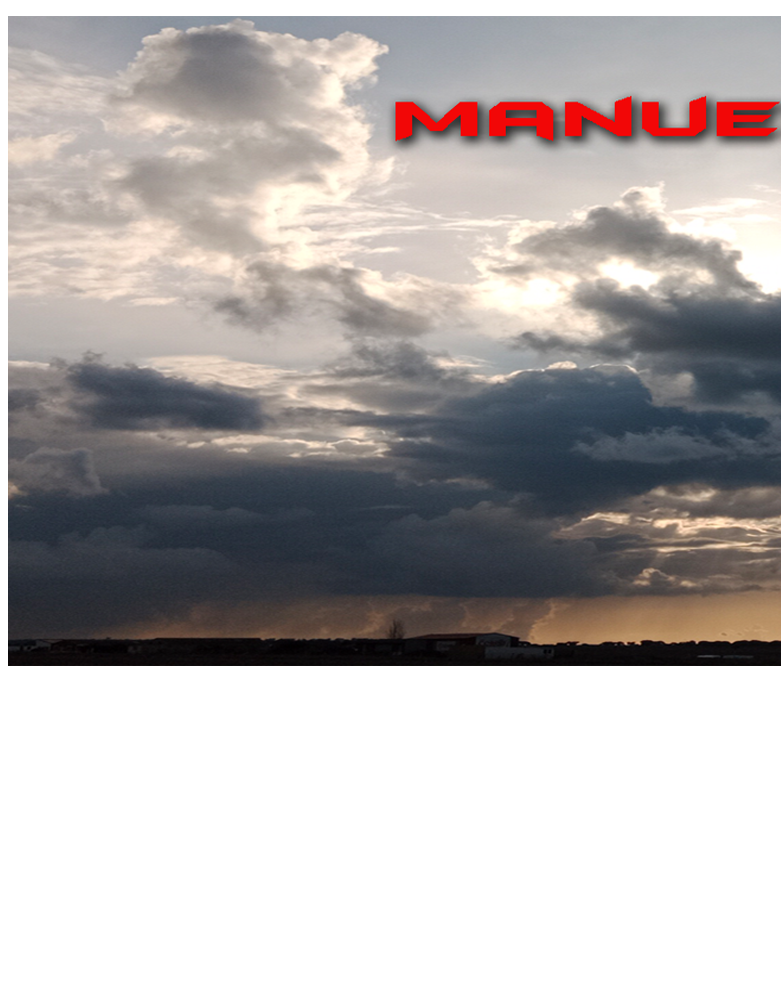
#include "include/core/SkBlurTypes.h"
#include "include/core/SkCanvas.h"
#include "include/core/SkData.h"
#include "include/core/SkFont.h"
#include "include/core/SkFontMgr.h"
#include "include/core/SkImage.h"
#include "include/core/SkMaskFilter.h"
#include "include/core/SkPaint.h"
#include "include/core/SkPathBuilder.h"
#include "include/core/SkTextBlob.h"
#include "include/effects/SkDashPathEffect.h"
#include "include/effects/SkGradientShader.h"
#include "include/utils/SkParsePath.h"

extern sk_sp<SkFontMgr> fontMgr;

void draw(SkCanvas* canvas) {
    SkPaint p;
    p.setAntiAlias(true);
    auto drawPhoto = [&](const char* path, float l, float t, float r, float b) {
        auto image = SkImages::DeferredFromEncodedData(SkData::MakeFromFileName(path));
        canvas->drawImageRect(image, SkRect::MakeLTRB(l, t, r, b), SkSamplingOptions());
    };
    canvas->clear(0xFFFFFFFF);
    drawPhoto("media/1.png", 8, 16, 781, 666);
}
